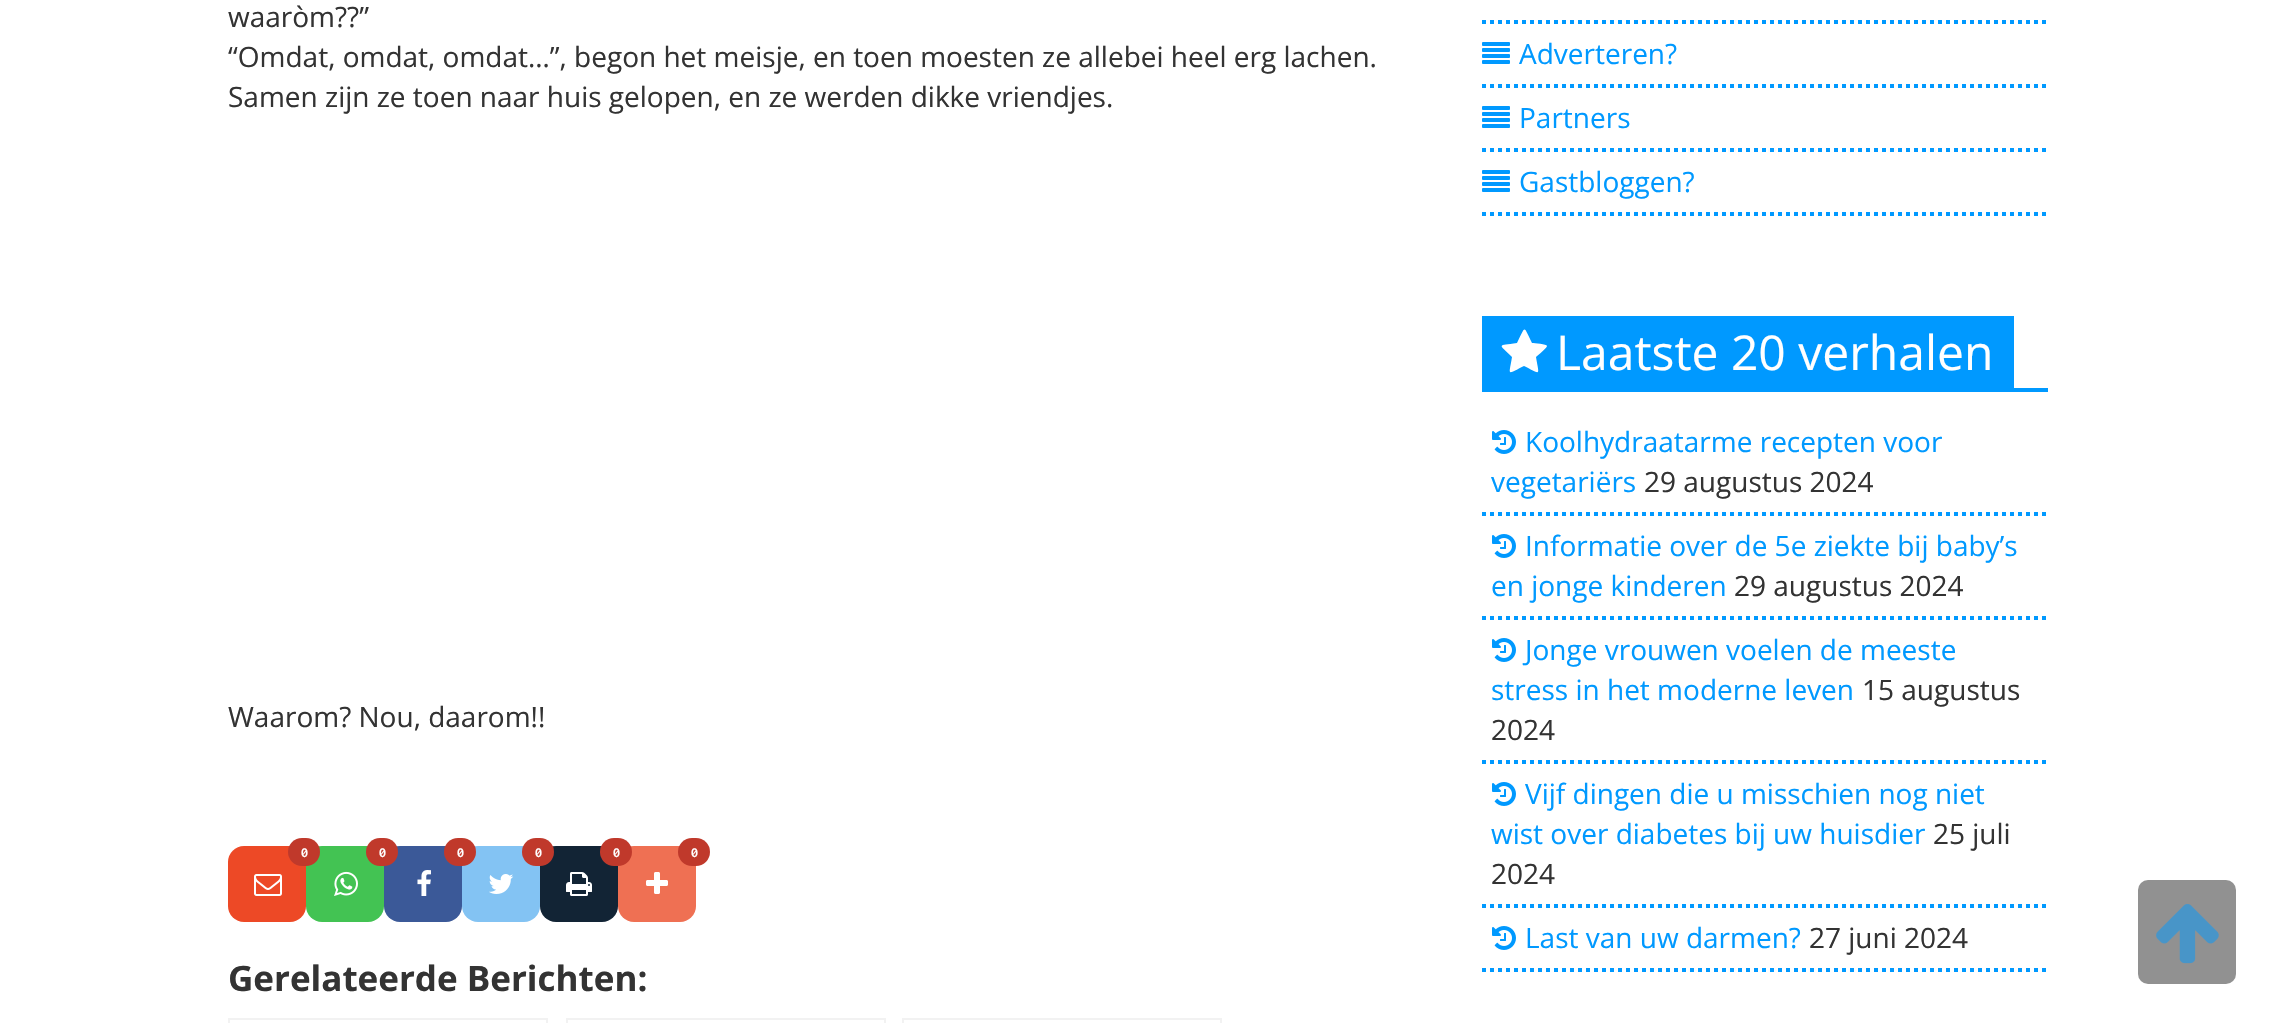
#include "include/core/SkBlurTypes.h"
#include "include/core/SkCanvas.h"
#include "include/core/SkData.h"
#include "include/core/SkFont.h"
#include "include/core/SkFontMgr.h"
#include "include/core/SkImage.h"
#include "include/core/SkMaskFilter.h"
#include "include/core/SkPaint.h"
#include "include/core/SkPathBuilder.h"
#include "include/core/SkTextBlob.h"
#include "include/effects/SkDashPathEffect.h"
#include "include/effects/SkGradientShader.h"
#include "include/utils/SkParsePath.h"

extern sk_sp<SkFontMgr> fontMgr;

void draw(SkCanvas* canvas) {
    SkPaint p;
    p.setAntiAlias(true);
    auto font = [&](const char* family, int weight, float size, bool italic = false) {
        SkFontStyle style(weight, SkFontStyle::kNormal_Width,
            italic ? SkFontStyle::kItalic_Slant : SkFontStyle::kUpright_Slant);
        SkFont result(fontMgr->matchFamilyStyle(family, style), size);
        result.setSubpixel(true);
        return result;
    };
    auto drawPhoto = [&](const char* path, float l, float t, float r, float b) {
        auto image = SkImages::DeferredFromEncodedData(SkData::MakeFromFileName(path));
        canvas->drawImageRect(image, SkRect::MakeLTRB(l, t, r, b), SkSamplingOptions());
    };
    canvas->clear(0xFFFFFFFF);
    auto font1 = font("Open Sans", 400, 28);
    p.setColor(0xFF333333);
    {
        const struct { const char* s; float x, y; } items[] = {
            {"waaròm?\077”", 228, 27},
            {"“Omdat, omdat, omdat…”, begon het meisje, en toen moesten ze allebei heel erg lachen.", 228, 67},
            {"Samen zijn ze toen naar huis gelopen, en ze werden dikke vriendjes.", 228, 107},
            {"Waarom? Nou, daarom!!", 228, 727},
        };
        for (auto [s, x, y] : items) {
            canvas->drawString(s, x, y, font1, p);
        }
    }
    p.setColor(0xFFED4926);
    canvas->drawRoundRect(SkRect::MakeLTRB(228, 846, 306, 922), 16, 16, p);
    p.setColor(0xFF43C353);
    canvas->drawRoundRect(SkRect::MakeLTRB(306, 846, 384, 922), 16, 16, p);
    p.setColor(0xFFC0392B);
    canvas->drawRoundRect(SkRect::MakeLTRB(288, 838, 320, 866), 14, 14, p);
    auto font2 = font("Inconsolata", 700, 14);
    p.setColor(0xFFFFFFFF);
    canvas->drawString("0", 301, 857, font2, p);
    drawPhoto("media/1.png", 254, 874, 282, 896);
    p.setColor(0xFF3B5998);
    canvas->drawRoundRect(SkRect::MakeLTRB(384, 846, 462, 922), 16, 16, p);
    p.setColor(0xFFC0392B);
    canvas->drawRoundRect(SkRect::MakeLTRB(366, 838, 398, 866), 14, 14, p);
    p.setColor(0xFFFFFFFF);
    canvas->drawString("0", 379, 857, font2, p);
    drawPhoto("media/2.png", 334, 871, 358, 896);
    p.setColor(0xFF83C3F3);
    canvas->drawRoundRect(SkRect::MakeLTRB(462, 846, 540, 922), 16, 16, p);
    p.setColor(0xFFC0392B);
    canvas->drawRoundRect(SkRect::MakeLTRB(444, 838, 476, 866), 14, 14, p);
    p.setColor(0xFFFFFFFF);
    canvas->drawString("0", 457, 857, font2, p);
    drawPhoto("media/3.png", 417, 870, 431, 896);
    p.setColor(0xFF122435);
    canvas->drawRoundRect(SkRect::MakeLTRB(540, 846, 618, 922), 16, 16, p);
    p.setColor(0xFFC0392B);
    canvas->drawRoundRect(SkRect::MakeLTRB(522, 838, 554, 866), 14, 14, p);
    p.setColor(0xFFFFFFFF);
    canvas->drawString("0", 535, 857, font2, p);
    drawPhoto("media/4.png", 489, 874, 514, 894);
    p.setColor(0xFFEF7053);
    canvas->drawRoundRect(SkRect::MakeLTRB(618, 846, 696, 922), 16, 16, p);
    p.setColor(0xFFC0392B);
    canvas->drawRoundRect(SkRect::MakeLTRB(600, 838, 632, 866), 14, 14, p);
    p.setColor(0xFFFFFFFF);
    canvas->drawString("0", 613, 857, font2, p);
    drawPhoto("media/5.png", 566, 872, 592, 896);
    p.setColor(0xFFC0392B);
    canvas->drawRoundRect(SkRect::MakeLTRB(678, 838, 710, 866), 14, 14, p);
    p.setColor(0xFFFFFFFF);
    canvas->drawString("0", 691, 857, font2, p);
    drawPhoto("media/6.png", 646, 872, 668, 894);
    auto font3 = font("Open Sans", 700, 35);
    p.setColor(0xFF333333);
    canvas->drawString("Gerelateerde Berichten:", 228, 991, font3, p);
    p.setStyle(SkPaint::kStroke_Style);
    p.setStrokeWidth(2);
    p.setColor(0xFFF2F2F2);
    canvas->drawRect(SkRect::MakeLTRB(229, 1019, 547, 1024), p);
    canvas->drawRect(SkRect::MakeLTRB(567, 1019, 885, 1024), p);
    canvas->drawRect(SkRect::MakeLTRB(903, 1019, 1221, 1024), p);
    p.setStrokeWidth(4);
    p.setColor(0xFF0099FF);
    p.setPathEffect(SkDashPathEffect::Make({{4, 4}}, 0));
    canvas->drawPath(SkPathBuilder().moveTo(1482, 22).lineTo(2048, 22).detach(), p);
    p.setPathEffect(nullptr);
    drawPhoto("media/7.png", 1482, 42, 1510, 64);
    p.setPathEffect(SkDashPathEffect::Make({{4, 4}}, 0));
    canvas->drawPath(SkPathBuilder().moveTo(1482, 86).lineTo(2048, 86).detach(), p);
    p.setPathEffect(nullptr);
    p.setStyle(SkPaint::kFill_Style);
    canvas->drawString("Adverteren?", 1519, 64, font1, p);
    drawPhoto("media/7.png", 1482, 106, 1510, 128);
    p.setStyle(SkPaint::kStroke_Style);
    p.setPathEffect(SkDashPathEffect::Make({{4, 4}}, 0));
    canvas->drawPath(SkPathBuilder().moveTo(1482, 150).lineTo(2048, 150).detach(), p);
    p.setPathEffect(nullptr);
    p.setStyle(SkPaint::kFill_Style);
    canvas->drawString("Partners", 1519, 128, font1, p);
    drawPhoto("media/7.png", 1482, 170, 1510, 192);
    p.setStyle(SkPaint::kStroke_Style);
    p.setPathEffect(SkDashPathEffect::Make({{4, 4}}, 0));
    canvas->drawPath(SkPathBuilder().moveTo(1482, 214).lineTo(2048, 214).detach(), p);
    p.setPathEffect(nullptr);
    p.setStyle(SkPaint::kFill_Style);
    canvas->drawString("Gastbloggen?", 1519, 192, font1, p);
    canvas->drawRect(SkRect::MakeLTRB(1482, 388, 2048, 392), p);
    canvas->drawRect(SkRect::MakeLTRB(1482, 316, 2014, 388), p);
    p.setColor(0xFFFFFFFF);
    canvas->drawPath(SkPathBuilder().moveTo(1547, 346).cubicTo(1547, 348, 1538, 355, 1536, 357).cubicTo(1539, 376, 1542, 375, 1524, 366).cubicTo(1506, 375, 1509, 376, 1512, 357).cubicTo(1498, 343, 1497, 346, 1517, 343).cubicTo(1526, 325, 1523, 325, 1532, 343).cubicTo(1534, 343, 1547, 344, 1547, 346).close().detach(), p);
    auto font4 = font("Open Sans", 400, 48);
    canvas->drawString("Laatste 20 verhalen", 1556, 370, font4, p);
    p.setStyle(SkPaint::kStroke_Style);
    p.setColor(0xFF0099FF);
    p.setPathEffect(SkDashPathEffect::Make({{4, 4}}, 0));
    canvas->drawPath(SkPathBuilder().moveTo(1482, 514).lineTo(2048, 514).detach(), p);
    p.setPathEffect(nullptr);
    drawPhoto("media/8.png", 1492, 430, 1516, 454);
    p.setStyle(SkPaint::kFill_Style);
    canvas->drawString("Koolhydraatarme recepten voor", 1525, 452, font1, p);
    canvas->drawString("vegetariërs", 1491, 492, font1, p);
    p.setColor(0xFF333333);
    canvas->drawString("29 augustus 2024", 1644, 492, font1, p);
    p.setStyle(SkPaint::kStroke_Style);
    p.setColor(0xFF0099FF);
    p.setPathEffect(SkDashPathEffect::Make({{4, 4}}, 0));
    canvas->drawPath(SkPathBuilder().moveTo(1482, 618).lineTo(2048, 618).detach(), p);
    p.setPathEffect(nullptr);
    drawPhoto("media/8.png", 1492, 534, 1516, 558);
    p.setStyle(SkPaint::kFill_Style);
    canvas->drawString("Informatie over de 5e ziekte bij baby’s", 1525, 556, font1, p);
    canvas->drawString("en jonge kinderen", 1491, 596, font1, p);
    p.setColor(0xFF333333);
    canvas->drawString("29 augustus 2024", 1734, 596, font1, p);
    p.setStyle(SkPaint::kStroke_Style);
    p.setColor(0xFF0099FF);
    p.setPathEffect(SkDashPathEffect::Make({{4, 4}}, 0));
    canvas->drawPath(SkPathBuilder().moveTo(1482, 762).lineTo(2048, 762).detach(), p);
    p.setPathEffect(nullptr);
    drawPhoto("media/8.png", 1492, 638, 1516, 662);
    p.setStyle(SkPaint::kFill_Style);
    canvas->drawString("Jonge vrouwen voelen de meeste", 1525, 660, font1, p);
    canvas->drawString("stress in het moderne leven", 1491, 700, font1, p);
    p.setColor(0xFF333333);
    canvas->drawString("15 augustus", 1862, 700, font1, p);
    canvas->drawString("2024", 1491, 740, font1, p);
    p.setStyle(SkPaint::kStroke_Style);
    p.setColor(0xFF0099FF);
    p.setPathEffect(SkDashPathEffect::Make({{4, 4}}, 0));
    canvas->drawPath(SkPathBuilder().moveTo(1482, 906).lineTo(2048, 906).detach(), p);
    p.setPathEffect(nullptr);
    drawPhoto("media/8.png", 1492, 782, 1516, 806);
    p.setStyle(SkPaint::kFill_Style);
    canvas->drawString("Vijf dingen die u misschien nog niet", 1525, 804, font1, p);
    canvas->drawString("wist over diabetes bij uw huisdier", 1491, 844, font1, p);
    p.setColor(0xFF333333);
    canvas->drawString("25 juli", 1933, 844, font1, p);
    canvas->drawString("2024", 1491, 884, font1, p);
    p.setStyle(SkPaint::kStroke_Style);
    p.setColor(0xFF0099FF);
    p.setPathEffect(SkDashPathEffect::Make({{4, 4}}, 0));
    canvas->drawPath(SkPathBuilder().moveTo(1482, 970).lineTo(2048, 970).detach(), p);
    p.setPathEffect(nullptr);
    drawPhoto("media/8.png", 1492, 926, 1516, 950);
    p.setStyle(SkPaint::kFill_Style);
    canvas->drawString("Last van uw darmen?", 1525, 948, font1, p);
    p.setColor(0xFF333333);
    canvas->drawString("27 juni 2024", 1809, 948, font1, p);
    p.setColor(0xFF919191);
    canvas->drawRoundRect(SkRect::MakeLTRB(2138, 880, 2236, 984), 10, 10, p);
    drawPhoto("media/9.png", 2156, 904, 2219, 964);
}
